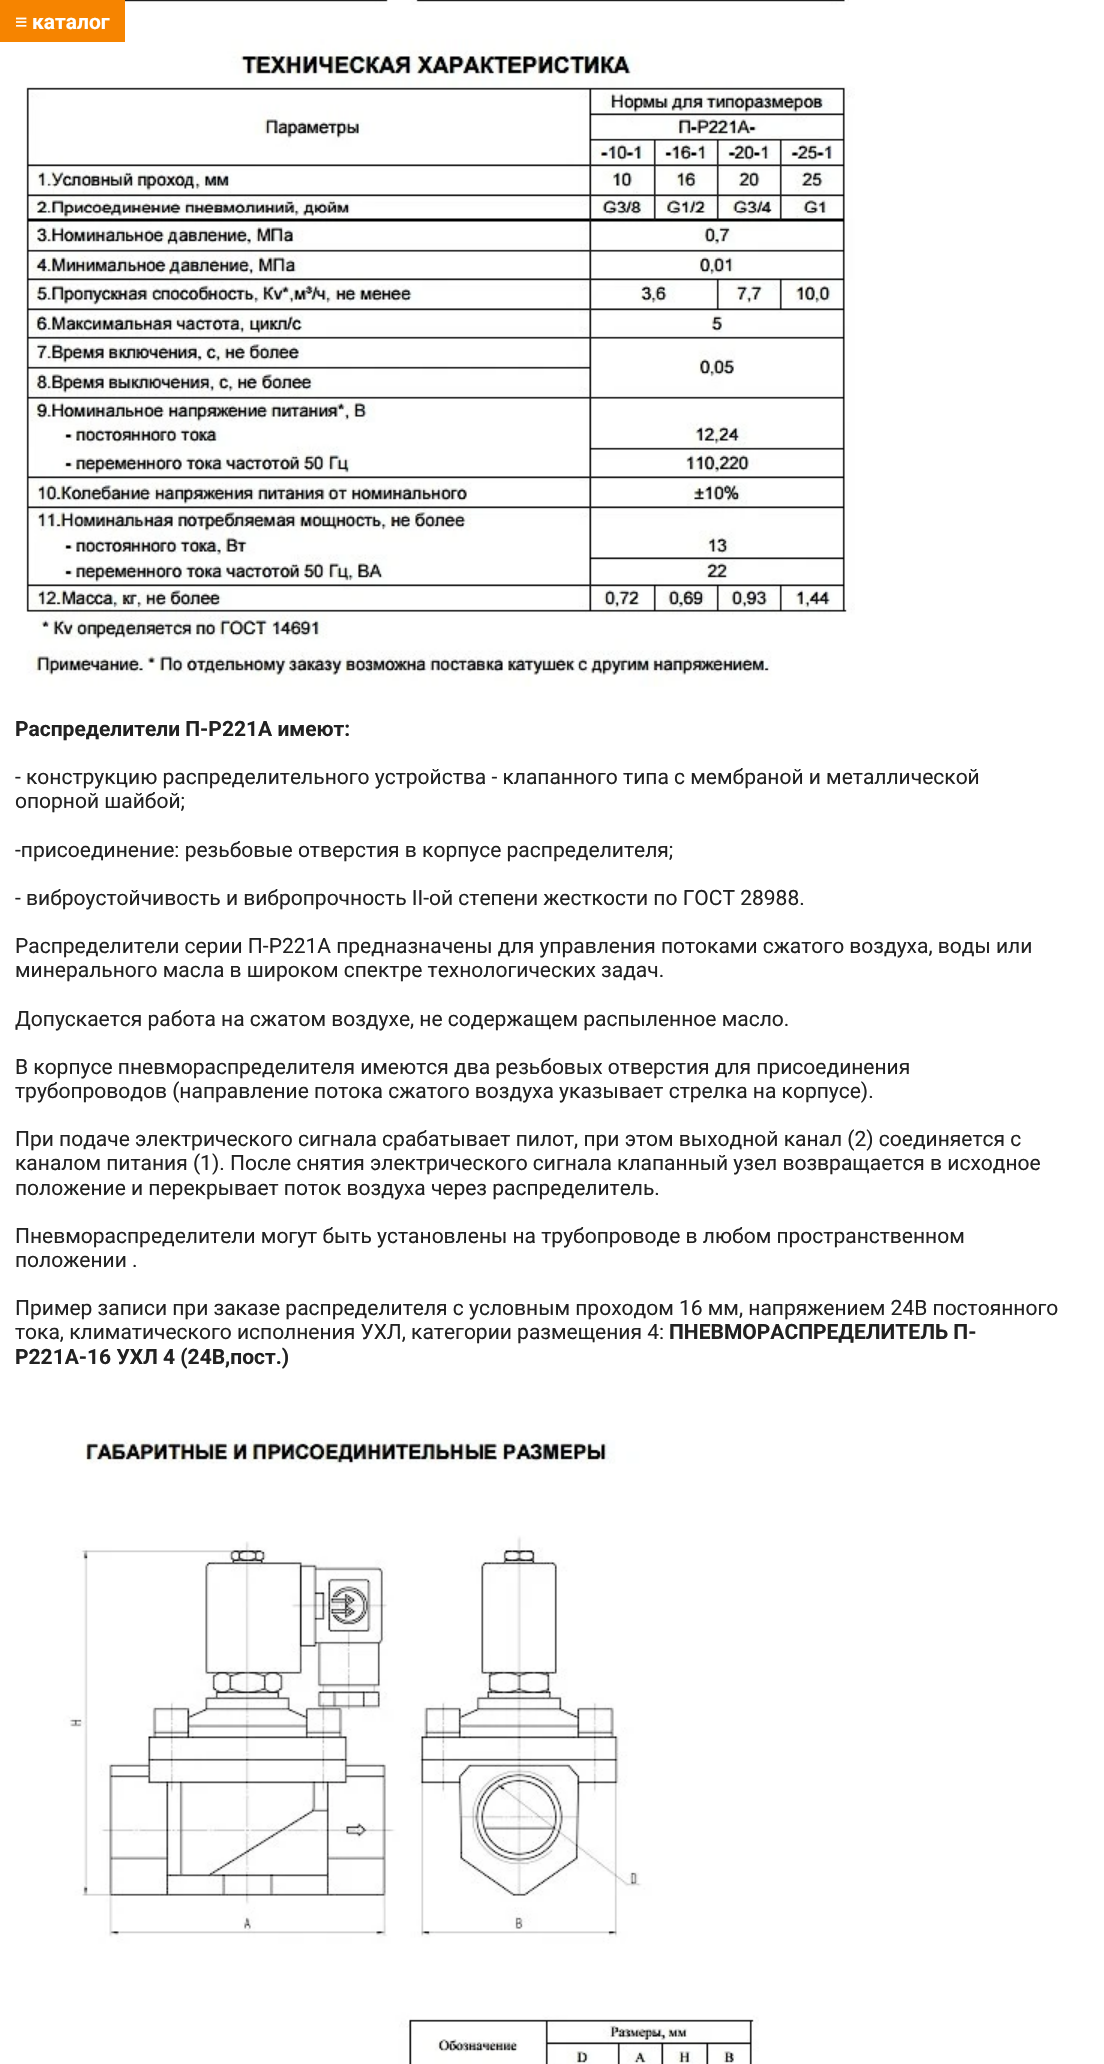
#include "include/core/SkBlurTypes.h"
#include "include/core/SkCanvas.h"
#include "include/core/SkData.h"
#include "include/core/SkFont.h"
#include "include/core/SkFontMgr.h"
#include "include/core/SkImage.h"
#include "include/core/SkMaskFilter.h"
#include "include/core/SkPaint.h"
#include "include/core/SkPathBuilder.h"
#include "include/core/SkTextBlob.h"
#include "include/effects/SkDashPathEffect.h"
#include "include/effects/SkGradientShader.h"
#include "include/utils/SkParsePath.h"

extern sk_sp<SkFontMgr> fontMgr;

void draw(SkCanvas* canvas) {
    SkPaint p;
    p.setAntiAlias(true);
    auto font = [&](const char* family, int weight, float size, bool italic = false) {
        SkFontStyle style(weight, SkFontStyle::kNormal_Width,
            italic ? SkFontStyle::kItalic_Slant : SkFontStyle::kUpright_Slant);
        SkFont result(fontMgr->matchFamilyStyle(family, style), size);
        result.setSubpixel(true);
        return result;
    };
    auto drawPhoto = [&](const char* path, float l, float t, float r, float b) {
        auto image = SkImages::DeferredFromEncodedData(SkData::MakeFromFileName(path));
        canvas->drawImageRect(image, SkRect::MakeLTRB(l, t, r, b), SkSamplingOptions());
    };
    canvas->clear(0xFFFFFFFF);
    drawPhoto("media/2.png", 26, 39, 855, 687);
    p.setColor(0xFFF68400);
    canvas->drawRect(SkRect::MakeLTRB(0, 0, 125, 42), p);
    auto font1 = font("Liberation Sans", 700, 21);
    p.setColor(0xFFFFFFFF);
    canvas->drawString("≡", 15, 29, font1, p);
    auto font2 = font("Roboto", 700, 21);
    canvas->drawString("каталог", 32, 29, font2, p);
    drawPhoto("media/1.png", 125, 0, 849, 5);
    p.setColor(0xFF222222);
    canvas->drawString("Распределители П-Р221А имеют:", 15, 736, font2, p);
    auto font3 = font("Roboto", 400, 21);
    {
        const struct { const char* s; float x, y; } items[] = {
            {"- конструкцию распределительного устройства - клапанного типа с мембраной и металлической", 15, 784},
            {"опорной шайбой;", 15, 808},
            {"-присоединение: резьбовые отверстия в корпусе распределителя;", 15, 857},
            {"- виброустойчивость и вибропрочность II-ой степени жесткости по ГОСТ 28988.", 15, 905},
            {"Распределители серии П-Р221А предназначены для управления потоками сжатого воздуха, воды или", 15, 953},
            {"минерального масла в широком спектре технологических задач.", 15, 977},
            {"Допускается работа на сжатом воздухе, не содержащем распыленное масло.", 15, 1026},
            {"В корпусе пневмораспределителя имеются два резьбовых отверстия для присоединения", 15, 1074},
            {"трубопроводов (направление потока сжатого воздуха указывает стрелка на корпусе).", 15, 1098},
            {"При подаче электрического сигнала срабатывает пилот, при этом выходной канал (2) соединяется с", 15, 1146},
            {"каналом питания (1). После снятия электрического сигнала клапанный узел возвращается в исходное", 15, 1170},
            {"положение и перекрывает поток воздуха через распределитель.", 15, 1195},
            {"Пневмораспределители могут быть установлены на трубопроводе в любом пространственном", 15, 1243},
            {"положении .", 15, 1267},
            {"Пример записи при заказе распределителя с условным проходом 16 мм, напряжением 24В постоянного", 15, 1315},
            {"тока, климатического исполнения УХЛ, категории размещения 4:", 15, 1339},
        };
        for (auto [s, x, y] : items) {
            canvas->drawString(s, x, y, font3, p);
        }
    }
    canvas->drawString("ПНЕВМОРАСПРЕДЕЛИТЕЛЬ П-", 669, 1339, font2, p);
    canvas->drawString("Р221А-16 УХЛ 4 (24В,пост.)", 15, 1364, font2, p);
    drawPhoto("media/3.png", 63, 1439, 759, 2064);
}
